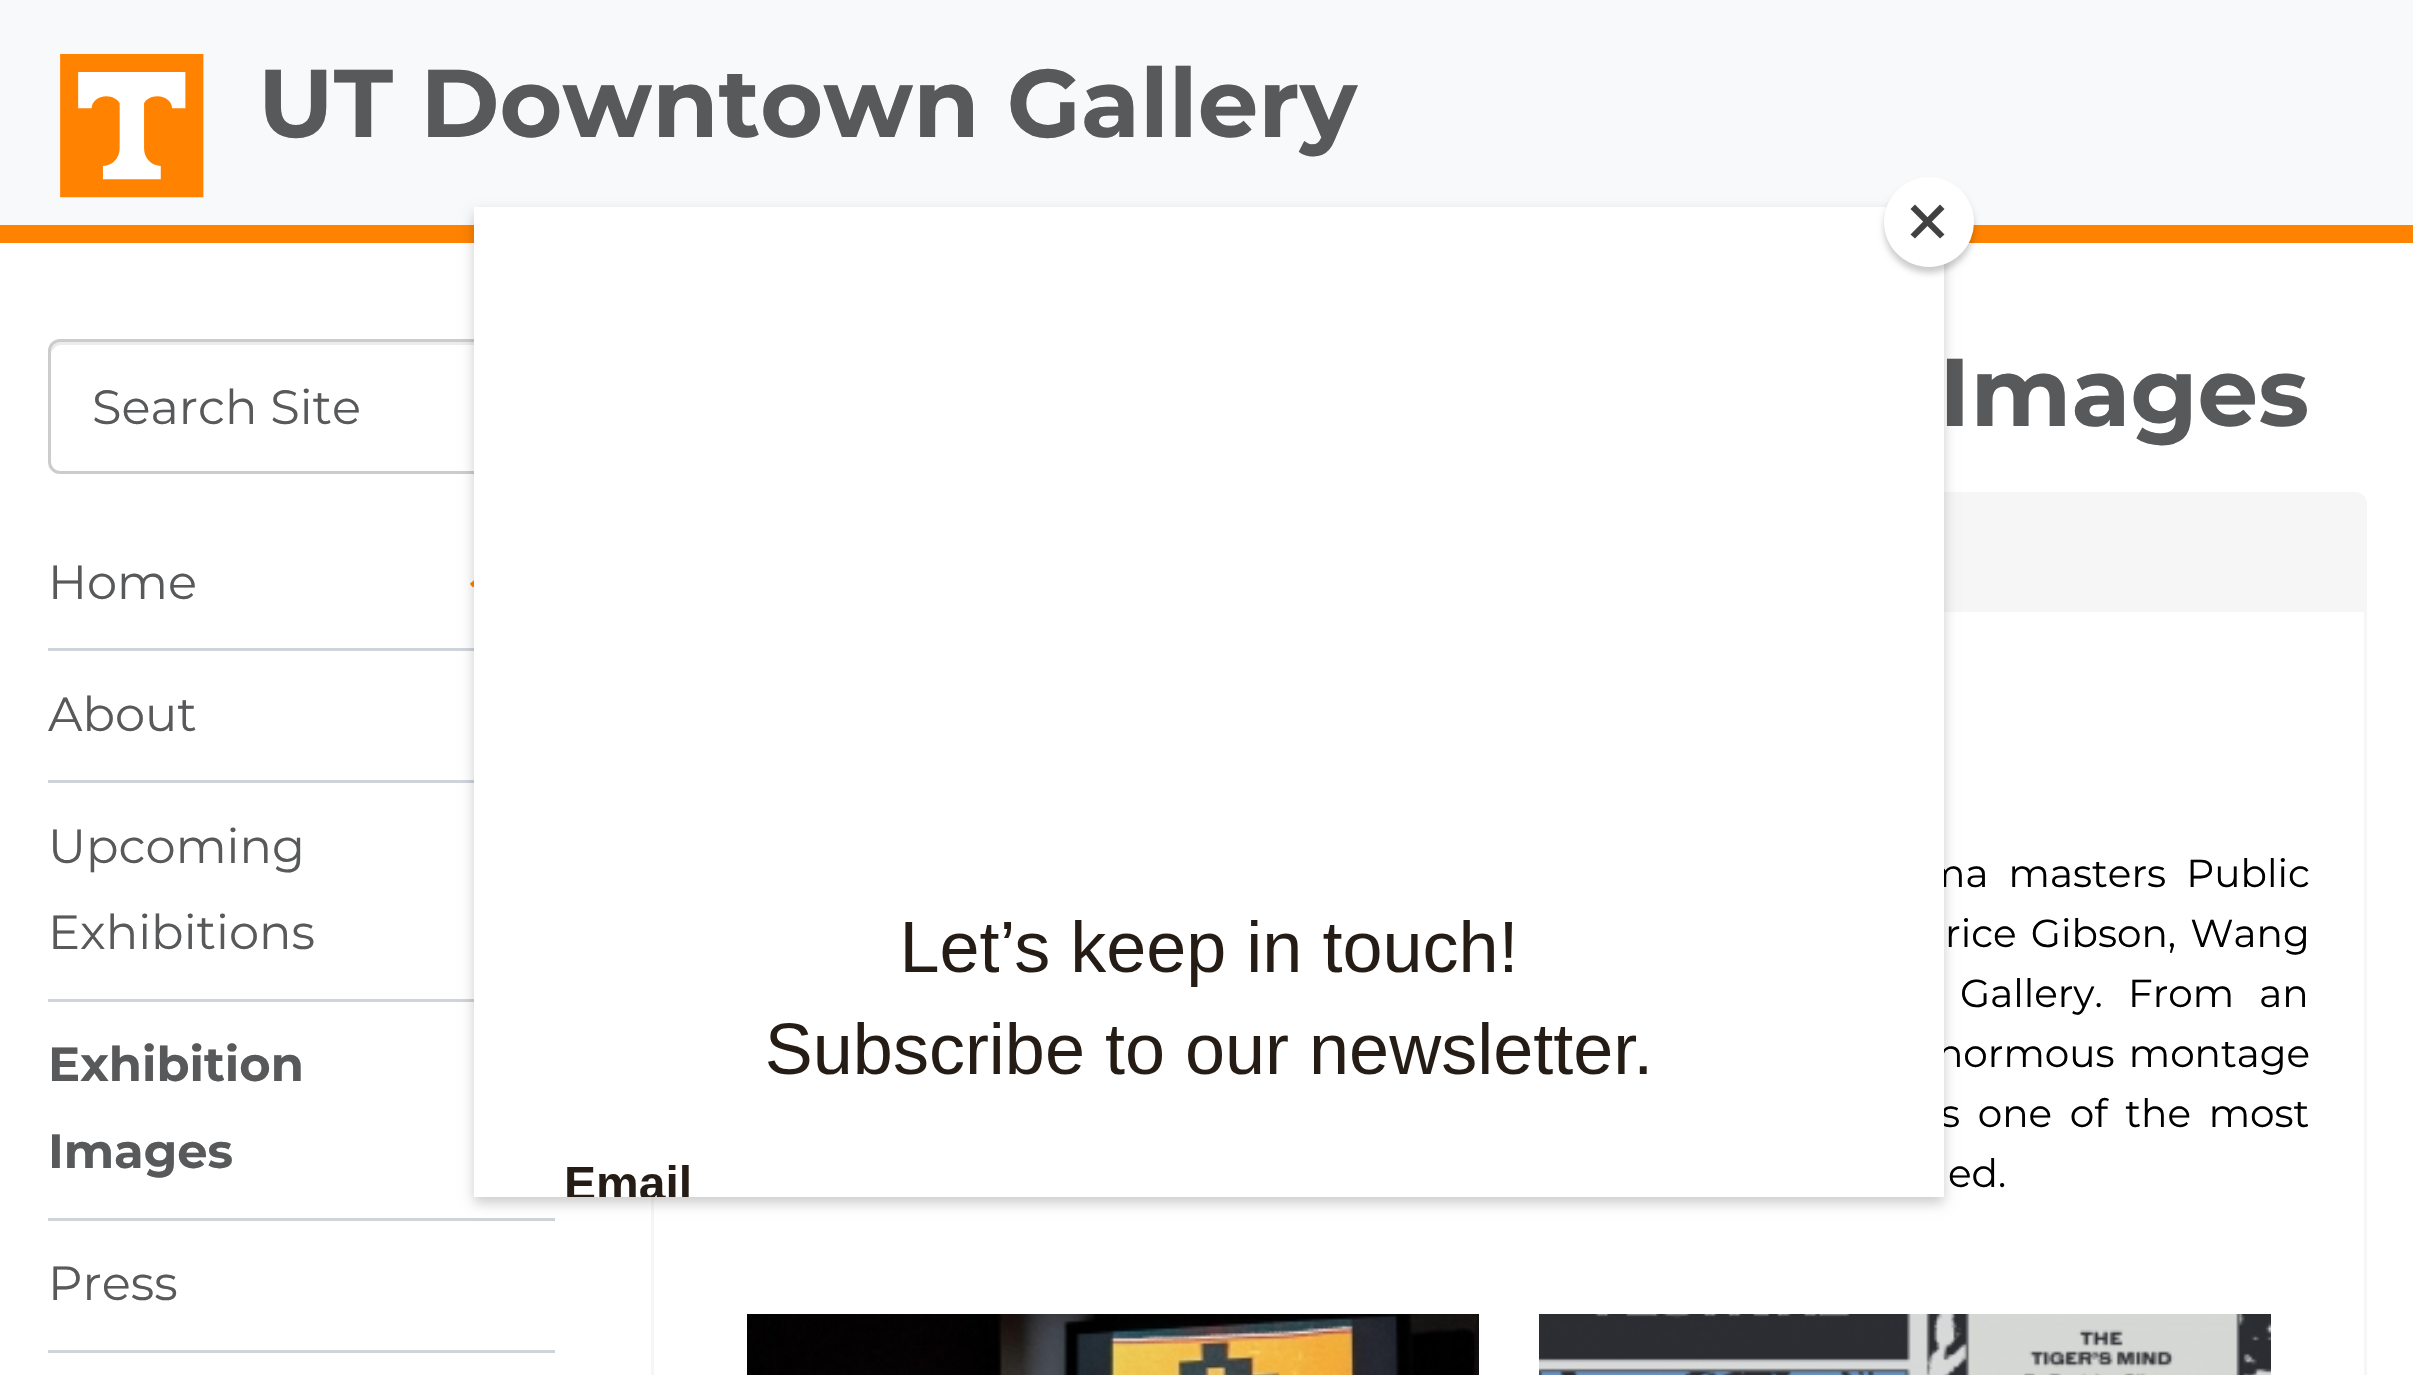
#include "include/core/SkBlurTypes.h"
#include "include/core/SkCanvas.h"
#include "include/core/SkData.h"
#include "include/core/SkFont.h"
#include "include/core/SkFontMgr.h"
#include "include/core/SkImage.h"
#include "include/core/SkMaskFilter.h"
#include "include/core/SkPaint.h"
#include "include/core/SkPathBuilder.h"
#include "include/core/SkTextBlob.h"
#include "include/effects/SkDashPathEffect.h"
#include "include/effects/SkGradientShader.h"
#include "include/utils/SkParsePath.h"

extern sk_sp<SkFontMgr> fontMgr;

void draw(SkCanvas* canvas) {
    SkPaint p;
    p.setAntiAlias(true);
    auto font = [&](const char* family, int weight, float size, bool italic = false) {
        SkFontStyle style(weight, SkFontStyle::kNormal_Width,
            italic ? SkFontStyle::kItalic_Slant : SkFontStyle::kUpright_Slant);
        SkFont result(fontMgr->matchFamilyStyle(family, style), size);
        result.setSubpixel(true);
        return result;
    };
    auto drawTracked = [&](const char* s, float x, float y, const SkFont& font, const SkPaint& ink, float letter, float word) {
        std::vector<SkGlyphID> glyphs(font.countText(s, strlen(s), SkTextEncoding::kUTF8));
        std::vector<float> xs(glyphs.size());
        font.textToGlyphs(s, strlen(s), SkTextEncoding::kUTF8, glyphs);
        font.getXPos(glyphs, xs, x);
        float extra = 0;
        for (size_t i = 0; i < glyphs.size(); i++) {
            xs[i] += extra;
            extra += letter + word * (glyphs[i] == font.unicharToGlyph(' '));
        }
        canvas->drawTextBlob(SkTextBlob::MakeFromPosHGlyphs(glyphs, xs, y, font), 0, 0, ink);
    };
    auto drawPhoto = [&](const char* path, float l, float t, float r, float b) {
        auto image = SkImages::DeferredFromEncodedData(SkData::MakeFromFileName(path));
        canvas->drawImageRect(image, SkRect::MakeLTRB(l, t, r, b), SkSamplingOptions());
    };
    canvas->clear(0xFFFFFFFF);
    p.setColor(0xFFF8F9FA);
    canvas->drawRect(SkRect::MakeLTRB(0, 0, 2413, 225), p);
    p.setColor(0xFFFF8200);
    canvas->drawRect(SkRect::MakeLTRB(0, 225, 2413, 243), p);
    drawPhoto("media/1.png", 60, 54, 204, 198);
    auto font1 = font("Montserrat", 700, 96);
    p.setColor(0xFF58595B);
    canvas->drawString("UT Downtown Gallery", 258, 137, font1, p);
    p.setColor(0xFFECECEC);
    canvas->drawPath(SkPathBuilder().moveTo(61, 345).lineTo(542, 345).cubicTo(547, 345, 552, 350, 552, 355).lineTo(552, 351).cubicTo(552, 346, 548, 342, 543, 342).lineTo(60, 342).cubicTo(55, 342, 51, 346, 51, 351).lineTo(51, 355).cubicTo(51, 350, 56, 345, 61, 345).close().detach(), p);
    p.setStyle(SkPaint::kStroke_Style);
    p.setStrokeWidth(3);
    p.setColor(0xFFCCCCCC);
    canvas->drawRoundRect(SkRect::MakeLTRB(49.5f, 340.5f, 553.5f, 472.5f), 10.5f, 10.5f, p);
    auto font2 = font("Montserrat", 400, 48);
    p.setStyle(SkPaint::kFill_Style);
    p.setColor(0xFF58595B);
    canvas->drawString("Search Site", 92, 424, font2, p);
    p.setColor(0xFFCED4DA);
    canvas->drawRect(SkRect::MakeLTRB(48, 648, 474, 651), p);
    p.setColor(0xFF58595B);
    canvas->drawString("Home", 48, 599, font2, p);
    drawPhoto("media/2.png", 470, 580, 474, 588);
    p.setColor(0xFFCED4DA);
    canvas->drawRect(SkRect::MakeLTRB(48, 780, 474, 783), p);
    p.setColor(0xFF58595B);
    canvas->drawString("About", 48, 731, font2, p);
    p.setColor(0xFFCED4DA);
    canvas->drawRect(SkRect::MakeLTRB(48, 999, 474, 1002), p);
    p.setColor(0xFF58595B);
    canvas->drawString("Upcoming", 48, 863, font2, p);
    canvas->drawString("Exhibitions", 48, 949, font2, p);
    p.setColor(0xFFCED4DA);
    canvas->drawRect(SkRect::MakeLTRB(48, 1218, 555, 1221), p);
    auto font3 = font("Montserrat", 700, 48);
    p.setColor(0xFF58595B);
    canvas->drawString("Exhibition", 48, 1081, font3, p);
    canvas->drawString("Images", 48, 1168, font3, p);
    p.setColor(0xFFCED4DA);
    canvas->drawRect(SkRect::MakeLTRB(48, 1350, 555, 1353), p);
    p.setColor(0xFF58595B);
    canvas->drawString("Press", 48, 1300, font2, p);
    canvas->drawString("Images", 1939, 426, font1, p);
    p.setStyle(SkPaint::kStroke_Style);
    p.setColor(0xFFF6F6F6);
    canvas->drawRoundRect(SkRect::MakeLTRB(652.5f, 493.5f, 2365.5f, 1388.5f), 10.5f, 10.5f, p);
    p.setStyle(SkPaint::kFill_Style);
    canvas->drawRect(SkRect::MakeLTRB(1944, 495, 2364, 612), p);
    auto font4 = font("Montserrat", 400, 39);
    p.setColor(0xFF000000);
    drawTracked("ma masters Public", 1924, 887, font4, p, 0, 10);
    drawTracked("rice Gibson, Wang", 1945, 947, font4, p, 0, 4);
    drawTracked("Gallery. From an", 1960, 1007, font4, p, 0, 15);
    drawTracked("normous montage", 1937, 1067, font4, p, 0, 4);
    drawTracked("s one of the most", 1941, 1127, font4, p, 0, 7.5f);
    canvas->drawString("ed.", 1948, 1187, font4, p);
    drawPhoto("media/3.png", 747, 1314, 1479, 1375);
    drawPhoto("media/4.png", 1539, 1314, 2271, 1375);
    p.setColor(0x33000000);
    p.setMaskFilter(SkMaskFilter::MakeBlur(kNormal_SkBlurStyle, 6));
    canvas->drawRect(SkRect::MakeLTRB(474, 213, 1944, 1203), p);
    p.setMaskFilter(nullptr);
    drawPhoto("media/5.png", 474, 207, 1944, 1197);
    p.setMaskFilter(SkMaskFilter::MakeBlur(kNormal_SkBlurStyle, 3));
    canvas->drawRoundRect(SkRect::MakeLTRB(1884, 183, 1974, 273), 45, 45, p);
    p.setMaskFilter(nullptr);
    p.setColor(0xFFFFFFFF);
    canvas->drawCircle(1929, 222, 45, p);
    p.setColor(0xFF414141);
    canvas->drawPath(SkPathBuilder().moveTo(1940, 204.5f).lineTo(1944.5f, 209).lineTo(1915, 238.5f).lineTo(1910.5f, 234.5f).close().detach(), p);
    canvas->drawPath(SkPathBuilder().moveTo(1910.5f, 209).lineTo(1915, 204.5f).lineTo(1944.5f, 234.5f).lineTo(1940, 238.5f).close().detach(), p);
}
